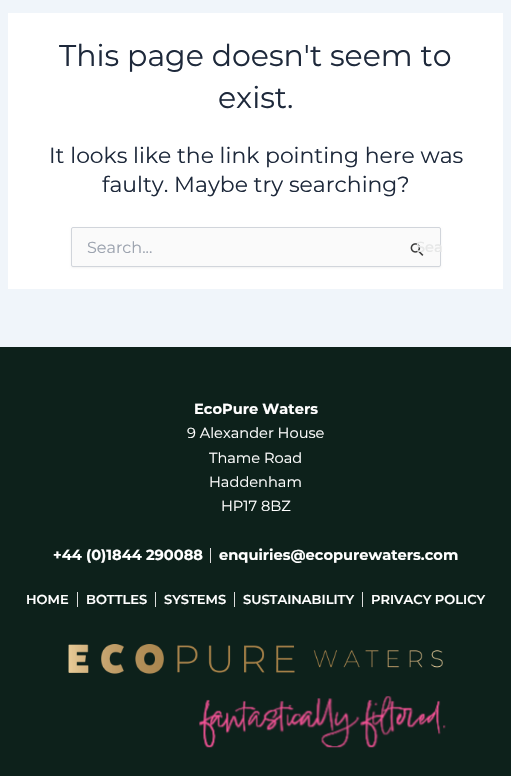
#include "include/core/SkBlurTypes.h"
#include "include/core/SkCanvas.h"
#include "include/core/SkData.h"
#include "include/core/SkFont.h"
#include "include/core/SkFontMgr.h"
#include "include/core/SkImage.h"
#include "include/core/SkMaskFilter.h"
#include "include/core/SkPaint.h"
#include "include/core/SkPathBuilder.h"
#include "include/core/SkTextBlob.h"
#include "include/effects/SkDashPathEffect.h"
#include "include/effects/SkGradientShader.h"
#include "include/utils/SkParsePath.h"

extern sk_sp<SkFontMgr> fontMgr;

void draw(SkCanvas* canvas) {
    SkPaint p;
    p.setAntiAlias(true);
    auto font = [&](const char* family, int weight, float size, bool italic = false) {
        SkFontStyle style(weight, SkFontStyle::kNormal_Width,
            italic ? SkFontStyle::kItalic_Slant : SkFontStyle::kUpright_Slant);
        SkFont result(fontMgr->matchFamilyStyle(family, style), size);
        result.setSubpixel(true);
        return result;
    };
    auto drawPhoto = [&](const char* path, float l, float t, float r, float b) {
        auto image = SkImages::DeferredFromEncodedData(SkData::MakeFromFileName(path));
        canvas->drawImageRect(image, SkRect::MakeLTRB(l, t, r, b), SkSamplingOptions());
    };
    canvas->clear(0xFFF0F5FA);
    p.setColor(0xFFFFFFFF);
    canvas->drawRect(SkRect::MakeLTRB(8, 13, 503, 289), p);
    auto font1 = font("Montserrat", 400, 30);
    p.setColor(0xFF1E293B);
    canvas->drawString("This page doesn't seem to", 59, 66, font1, p);
    canvas->drawString("exist.", 218, 108, font1, p);
    auto font2 = font("Montserrat", 400, 21.9f);
    canvas->drawString("It looks like the link pointing here was", 49, 163, font2, p);
    canvas->drawString("faulty. Maybe try searching?", 102, 192, font2, p);
    p.setColor(0x0D000000);
    p.setMaskFilter(SkMaskFilter::MakeBlur(kNormal_SkBlurStyle, 1));
    canvas->drawRoundRect(SkRect::MakeLTRB(71, 228, 441, 268), 2, 2, p);
    p.setMaskFilter(nullptr);
    p.setColor(0xFFFAFAFA);
    canvas->drawRoundRect(SkRect::MakeLTRB(71.5f, 227.5f, 440.5f, 266.5f), 1.5f, 1.5f, p);
    p.setStyle(SkPaint::kStroke_Style);
    p.setStrokeWidth(1);
    p.setColor(0xFFD1D5DB);
    canvas->drawRoundRect(SkRect::MakeLTRB(71.5f, 227.5f, 440.5f, 266.5f), 1.5f, 1.5f, p);
    auto font3 = font("Montserrat", 400, 16);
    p.setStyle(SkPaint::kFill_Style);
    p.setColor(0xFF9CA3AF);
    canvas->drawString("Search...", 87, 253, font3, p);
    drawPhoto("media/1.png", 410, 243, 424, 256);
    auto font4 = font("Montserrat", 500, 14.6f);
    p.setColor(0xFFE6E7E7);
    canvas->drawString("Sea", 416, 252, font4, p);
    p.setColor(0xFF0D211B);
    canvas->drawRect(SkRect::MakeLTRB(0, 347, 511, 776), p);
    auto font5 = font("Montserrat", 700, 14.6f);
    p.setColor(0xFFFFFFFF);
    canvas->drawString("EcoPure Waters", 194, 414, font5, p);
    auto font6 = font("Montserrat", 400, 14.6f);
    {
        const struct { const char* s; float x, y; } items[] = {
            {"9 Alexander House", 187, 438},
            {"Thame Road", 209, 463},
            {"Haddenham", 209, 487},
            {"HP17 8BZ", 221, 511},
        };
        for (auto [s, x, y] : items) {
            canvas->drawString(s, x, y, font6, p);
        }
    }
    canvas->drawString("+44 (0)1844 290088", 53, 560, font5, p);
    p.setColor(0xFFDDDDDD);
    canvas->drawRect(SkRect::MakeLTRB(210, 548, 211, 563), p);
    p.setColor(0xFFFFFFFF);
    canvas->drawString("enquiries@ecopurewaters.com", 219, 560, font5, p);
    auto font7 = font("Montserrat", 600, 13);
    canvas->drawString("HOME", 26, 604, font7, p);
    p.setColor(0xFFDDDDDD);
    canvas->drawRect(SkRect::MakeLTRB(77, 592, 78, 607), p);
    p.setColor(0xFFFFFFFF);
    canvas->drawString("BOTTLES", 86, 604, font7, p);
    p.setColor(0xFFDDDDDD);
    canvas->drawRect(SkRect::MakeLTRB(155, 592, 156, 607), p);
    p.setColor(0xFFFFFFFF);
    canvas->drawString("SYSTEMS", 164, 604, font7, p);
    p.setColor(0xFFDDDDDD);
    canvas->drawRect(SkRect::MakeLTRB(234, 592, 235, 607), p);
    p.setColor(0xFFFFFFFF);
    canvas->drawString("SUSTAINABILITY", 243, 604, font7, p);
    p.setColor(0xFFDDDDDD);
    canvas->drawRect(SkRect::MakeLTRB(362, 592, 363, 607), p);
    p.setColor(0xFFFFFFFF);
    canvas->drawString("PRIVACY POLICY", 371, 604, font7, p);
    drawPhoto("media/2.png", 68, 644, 443, 674);
    drawPhoto("media/3.png", 199, 696, 446, 748);
}
